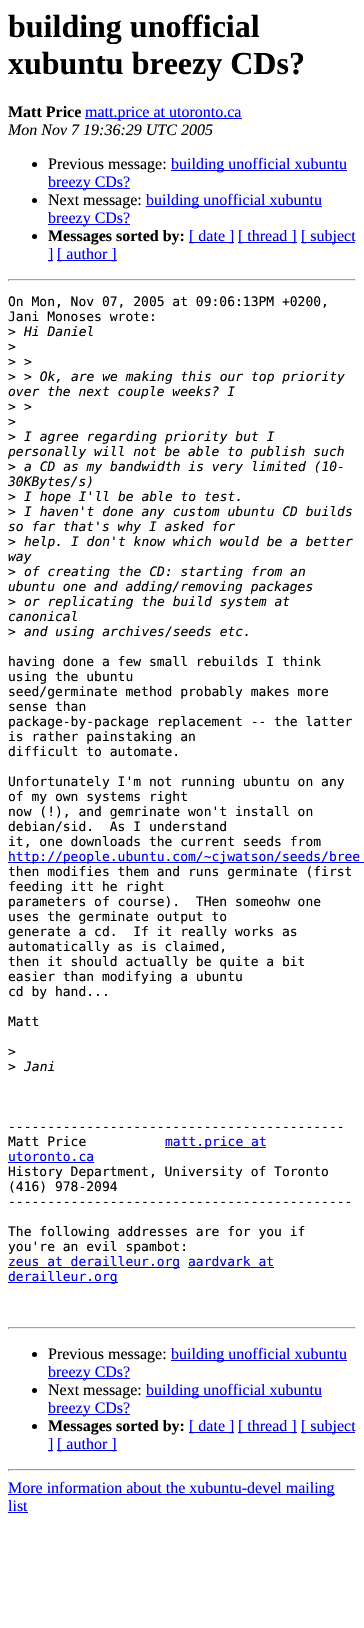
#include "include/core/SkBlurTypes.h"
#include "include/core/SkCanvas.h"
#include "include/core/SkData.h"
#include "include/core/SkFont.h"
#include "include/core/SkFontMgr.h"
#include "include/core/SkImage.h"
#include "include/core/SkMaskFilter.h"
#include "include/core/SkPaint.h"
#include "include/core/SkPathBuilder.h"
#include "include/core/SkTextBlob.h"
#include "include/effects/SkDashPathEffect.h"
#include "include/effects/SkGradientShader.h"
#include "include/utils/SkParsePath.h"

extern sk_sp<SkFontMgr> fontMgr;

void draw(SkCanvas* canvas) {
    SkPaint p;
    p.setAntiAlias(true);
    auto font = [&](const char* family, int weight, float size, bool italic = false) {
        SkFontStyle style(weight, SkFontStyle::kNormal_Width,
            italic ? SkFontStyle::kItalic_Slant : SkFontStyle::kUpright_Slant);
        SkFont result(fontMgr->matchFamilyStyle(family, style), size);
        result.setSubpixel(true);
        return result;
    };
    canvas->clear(0xFFFFFFFF);
    auto font1 = font("Liberation Serif", 700, 32);
    p.setColor(0xFF000000);
    canvas->drawString("building unofficial", 8, 37, font1, p);
    canvas->drawString("xubuntu breezy CDs?", 8, 74, font1, p);
    auto font2 = font("Liberation Serif", 700, 16);
    canvas->drawString("Matt Price", 8, 117, font2, p);
    p.setColor(0xFF0000EE);
    canvas->drawRect(SkRect::MakeLTRB(85, 118, 242, 119), p);
    auto font3 = font("Liberation Serif", 400, 16);
    canvas->drawString("matt.price at utoronto.ca", 85, 117, font3, p);
    auto font4 = font("Liberation Serif", 400, 16, true);
    p.setColor(0xFF000000);
    canvas->drawString("Mon Nov 7 19:36:29 UTC 2005", 8, 135, font4, p);
    canvas->drawCircle(34.5f, 164.5f, 2.5f, p);
    canvas->drawString("Previous message:", 48, 169, font3, p);
    p.setColor(0xFF0000EE);
    canvas->drawRect(SkRect::MakeLTRB(171, 170, 347, 171), p);
    canvas->drawString("building unofficial xubuntu", 171, 169, font3, p);
    canvas->drawRect(SkRect::MakeLTRB(48, 188, 130, 189), p);
    canvas->drawString("breezy CDs?", 48, 187, font3, p);
    p.setColor(0xFF000000);
    canvas->drawCircle(34.5f, 200.5f, 2.5f, p);
    canvas->drawString("Next message:", 48, 205, font3, p);
    p.setColor(0xFF0000EE);
    canvas->drawRect(SkRect::MakeLTRB(146, 206, 322, 207), p);
    canvas->drawString("building unofficial xubuntu", 146, 205, font3, p);
    canvas->drawRect(SkRect::MakeLTRB(48, 224, 130, 225), p);
    canvas->drawString("breezy CDs?", 48, 223, font3, p);
    p.setColor(0xFF000000);
    canvas->drawCircle(34.5f, 236.5f, 2.5f, p);
    canvas->drawString("Messages sorted by:", 48, 241, font2, p);
    p.setColor(0xFF0000EE);
    canvas->drawRect(SkRect::MakeLTRB(189, 242, 234, 243), p);
    canvas->drawString("[ date ]", 189, 241, font3, p);
    canvas->drawRect(SkRect::MakeLTRB(238, 242, 297, 243), p);
    canvas->drawString("[ thread ]", 238, 241, font3, p);
    canvas->drawRect(SkRect::MakeLTRB(301, 242, 355, 243), p);
    canvas->drawString("[ subject", 301, 241, font3, p);
    canvas->drawRect(SkRect::MakeLTRB(48, 260, 53, 261), p);
    canvas->drawString("]", 48, 259, font3, p);
    canvas->drawRect(SkRect::MakeLTRB(57, 260, 117, 261), p);
    canvas->drawString("[ author ]", 57, 259, font3, p);
    {
        const struct { float l, t, r, b; SkColor color; } items[] = {
            {8, 279, 356, 280, 0xFF9F9F9F},
            {355, 279, 356, 281, 0xFFEEEEEE},
            {8, 280, 356, 281, 0xFFEEEEEE},
            {8, 279, 9, 281, 0xFF9F9F9F},
        };
        for (auto [l, t, r, b, color] : items) {
            p.setColor(color);
            canvas->drawRect(SkRect::MakeLTRB(l, t, r, b), p);
        }
    }
    auto font5 = font("DejaVu Sans Mono", 400, 13);
    p.setColor(0xFF000000);
    {
        const struct { const char* s; float x, y; } items[] = {
            {"On Mon, Nov 07, 2005 at 09:06:13PM +0200,", 8, 306},
            {"Jani Monoses wrote:", 8, 321},
            {">", 8, 336},
        };
        for (auto [s, x, y] : items) {
            canvas->drawString(s, x, y, font5, p);
        }
    }
    auto font6 = font("DejaVu Sans Mono", 400, 13, true);
    canvas->drawString("Hi Daniel", 24, 336, font6, p);
    canvas->drawString(">", 8, 351, font5, p);
    canvas->drawString(">", 8, 366, font5, p);
    canvas->drawString(">", 24, 366, font6, p);
    canvas->drawString(">", 8, 381, font5, p);
    canvas->drawString("> Ok, are we making this our top priority", 24, 381, font6, p);
    canvas->drawString("over the next couple weeks? I", 8, 396, font6, p);
    canvas->drawString(">", 8, 411, font5, p);
    canvas->drawString(">", 24, 411, font6, p);
    canvas->drawString(">", 8, 426, font5, p);
    canvas->drawString(">", 8, 441, font5, p);
    canvas->drawString("I agree regarding priority but I", 24, 441, font6, p);
    canvas->drawString("personally will not be able to publish such", 8, 456, font6, p);
    canvas->drawString(">", 8, 471, font5, p);
    canvas->drawString("a CD as my bandwidth is very limited (10-", 24, 471, font6, p);
    canvas->drawString("30KBytes/s)", 8, 486, font6, p);
    canvas->drawString(">", 8, 501, font5, p);
    canvas->drawString("I hope I'll be able to test.", 24, 501, font6, p);
    canvas->drawString(">", 8, 516, font5, p);
    canvas->drawString("I haven't done any custom ubuntu CD builds", 24, 516, font6, p);
    canvas->drawString("so far that's why I asked for", 8, 531, font6, p);
    canvas->drawString(">", 8, 546, font5, p);
    canvas->drawString("help. I don't know which would be a better", 24, 546, font6, p);
    canvas->drawString("way", 8, 561, font6, p);
    canvas->drawString(">", 8, 576, font5, p);
    canvas->drawString("of creating the CD: starting from an", 24, 576, font6, p);
    canvas->drawString("ubuntu one and adding/removing packages", 8, 591, font6, p);
    canvas->drawString(">", 8, 606, font5, p);
    canvas->drawString("or replicating the build system at", 24, 606, font6, p);
    canvas->drawString("canonical", 8, 621, font6, p);
    canvas->drawString(">", 8, 636, font5, p);
    canvas->drawString("and using archives/seeds etc.", 24, 636, font6, p);
    {
        const struct { const char* s; float x, y; } items[] = {
            {"having done a few small rebuilds I think", 8, 666},
            {"using the ubuntu", 8, 681},
            {"seed/germinate method probably makes more", 8, 696},
            {"sense than", 8, 711},
            {"package-by-package replacement -- the latter", 8, 726},
            {"is rather painstaking an", 8, 741},
            {"difficult to automate.", 8, 756},
            {"Unfortunately I'm not running ubuntu on any", 8, 786},
            {"of my own systems right", 8, 801},
            {"now (!), and gemrinate won't install on", 8, 816},
            {"debian/sid.  As I understand", 8, 831},
            {"it, one downloads the current seeds from", 8, 846},
        };
        for (auto [s, x, y] : items) {
            canvas->drawString(s, x, y, font5, p);
        }
    }
    p.setColor(0xFF0000EE);
    canvas->drawRect(SkRect::MakeLTRB(8, 862, 364, 863), p);
    canvas->drawString("http://people.ubuntu.com/~cjwatson/seeds/bree", 8, 861, font5, p);
    p.setColor(0xFF000000);
    {
        const struct { const char* s; float x, y; } items[] = {
            {"then modifies them and runs germinate (first", 8, 876},
            {"feeding itt he right", 8, 891},
            {"parameters of course).  THen someohw one", 8, 906},
            {"uses the germinate output to", 8, 921},
            {"generate a cd.  If it really works as", 8, 936},
            {"automatically as is claimed,", 8, 951},
            {"then it should actually be quite a bit", 8, 966},
            {"easier than modifying a ubuntu", 8, 981},
            {"cd by hand...", 8, 996},
            {"Matt", 8, 1026},
            {">", 8, 1056},
            {">", 8, 1071},
        };
        for (auto [s, x, y] : items) {
            canvas->drawString(s, x, y, font5, p);
        }
    }
    canvas->drawString("Jani", 24, 1071, font6, p);
    canvas->drawString("-------------------------------------------", 8, 1131, font5, p);
    canvas->drawString("Matt Price", 8, 1146, font5, p);
    p.setColor(0xFF0000EE);
    canvas->drawRect(SkRect::MakeLTRB(165, 1147, 266, 1148), p);
    canvas->drawString("matt.price at", 165, 1146, font5, p);
    canvas->drawString("utoronto.ca", 8, 1161, font5, p);
    canvas->drawRect(SkRect::MakeLTRB(8, 1162, 94, 1163), p);
    p.setColor(0xFF000000);
    {
        const struct { const char* s; float x, y; } items[] = {
            {"History Department, University of Toronto", 8, 1176},
            {"(416) 978-2094", 8, 1191},
            {"--------------------------------------------", 8, 1206},
            {"The following addresses are for you if", 8, 1236},
            {"you're an evil spambot:", 8, 1251},
        };
        for (auto [s, x, y] : items) {
            canvas->drawString(s, x, y, font5, p);
        }
    }
    p.setColor(0xFF0000EE);
    canvas->drawRect(SkRect::MakeLTRB(8, 1267, 180, 1268), p);
    canvas->drawString("zeus at derailleur.org aardvark at", 8, 1266, font5, p);
    canvas->drawRect(SkRect::MakeLTRB(8, 1282, 118, 1283), p);
    canvas->drawString("derailleur.org", 8, 1281, font5, p);
    {
        const struct { float l, t, r, b; SkColor color; } items[] = {
            {188, 1267, 274, 1268, 0xFF0000EE},
            {8, 1327, 356, 1328, 0xFF9F9F9F},
            {355, 1327, 356, 1329, 0xFFEEEEEE},
            {8, 1328, 356, 1329, 0xFFEEEEEE},
            {8, 1327, 9, 1329, 0xFF9F9F9F},
        };
        for (auto [l, t, r, b, color] : items) {
            p.setColor(color);
            canvas->drawRect(SkRect::MakeLTRB(l, t, r, b), p);
        }
    }
    p.setColor(0xFF000000);
    canvas->drawCircle(34.5f, 1354.5f, 2.5f, p);
    canvas->drawString("Previous message:", 48, 1359, font3, p);
    p.setColor(0xFF0000EE);
    canvas->drawRect(SkRect::MakeLTRB(171, 1360, 347, 1361), p);
    canvas->drawString("building unofficial xubuntu", 171, 1359, font3, p);
    canvas->drawRect(SkRect::MakeLTRB(48, 1378, 130, 1379), p);
    canvas->drawString("breezy CDs?", 48, 1377, font3, p);
    p.setColor(0xFF000000);
    canvas->drawCircle(34.5f, 1390.5f, 2.5f, p);
    canvas->drawString("Next message:", 48, 1395, font3, p);
    p.setColor(0xFF0000EE);
    canvas->drawRect(SkRect::MakeLTRB(146, 1396, 322, 1397), p);
    canvas->drawString("building unofficial xubuntu", 146, 1395, font3, p);
    canvas->drawRect(SkRect::MakeLTRB(48, 1414, 130, 1415), p);
    canvas->drawString("breezy CDs?", 48, 1413, font3, p);
    p.setColor(0xFF000000);
    canvas->drawCircle(34.5f, 1426.5f, 2.5f, p);
    canvas->drawString("Messages sorted by:", 48, 1431, font2, p);
    p.setColor(0xFF0000EE);
    canvas->drawRect(SkRect::MakeLTRB(189, 1432, 234, 1433), p);
    canvas->drawString("[ date ]", 189, 1431, font3, p);
    canvas->drawRect(SkRect::MakeLTRB(238, 1432, 297, 1433), p);
    canvas->drawString("[ thread ]", 238, 1431, font3, p);
    canvas->drawRect(SkRect::MakeLTRB(301, 1432, 355, 1433), p);
    canvas->drawString("[ subject", 301, 1431, font3, p);
    canvas->drawRect(SkRect::MakeLTRB(48, 1450, 53, 1451), p);
    canvas->drawString("]", 48, 1449, font3, p);
    canvas->drawRect(SkRect::MakeLTRB(57, 1450, 117, 1451), p);
    canvas->drawString("[ author ]", 57, 1449, font3, p);
    {
        const struct { float l, t, r, b; SkColor color; } items[] = {
            {8, 1469, 356, 1470, 0xFF9F9F9F},
            {355, 1469, 356, 1471, 0xFFEEEEEE},
            {8, 1470, 356, 1471, 0xFFEEEEEE},
            {8, 1469, 9, 1471, 0xFF9F9F9F},
            {8, 1494, 335, 1495, 0xFF0000EE},
        };
        for (auto [l, t, r, b, color] : items) {
            p.setColor(color);
            canvas->drawRect(SkRect::MakeLTRB(l, t, r, b), p);
        }
    }
    canvas->drawString("More information about the xubuntu-devel mailing", 8, 1493, font3, p);
    canvas->drawString("list", 8, 1511, font3, p);
    canvas->drawRect(SkRect::MakeLTRB(8, 1512, 28, 1513), p);
}
